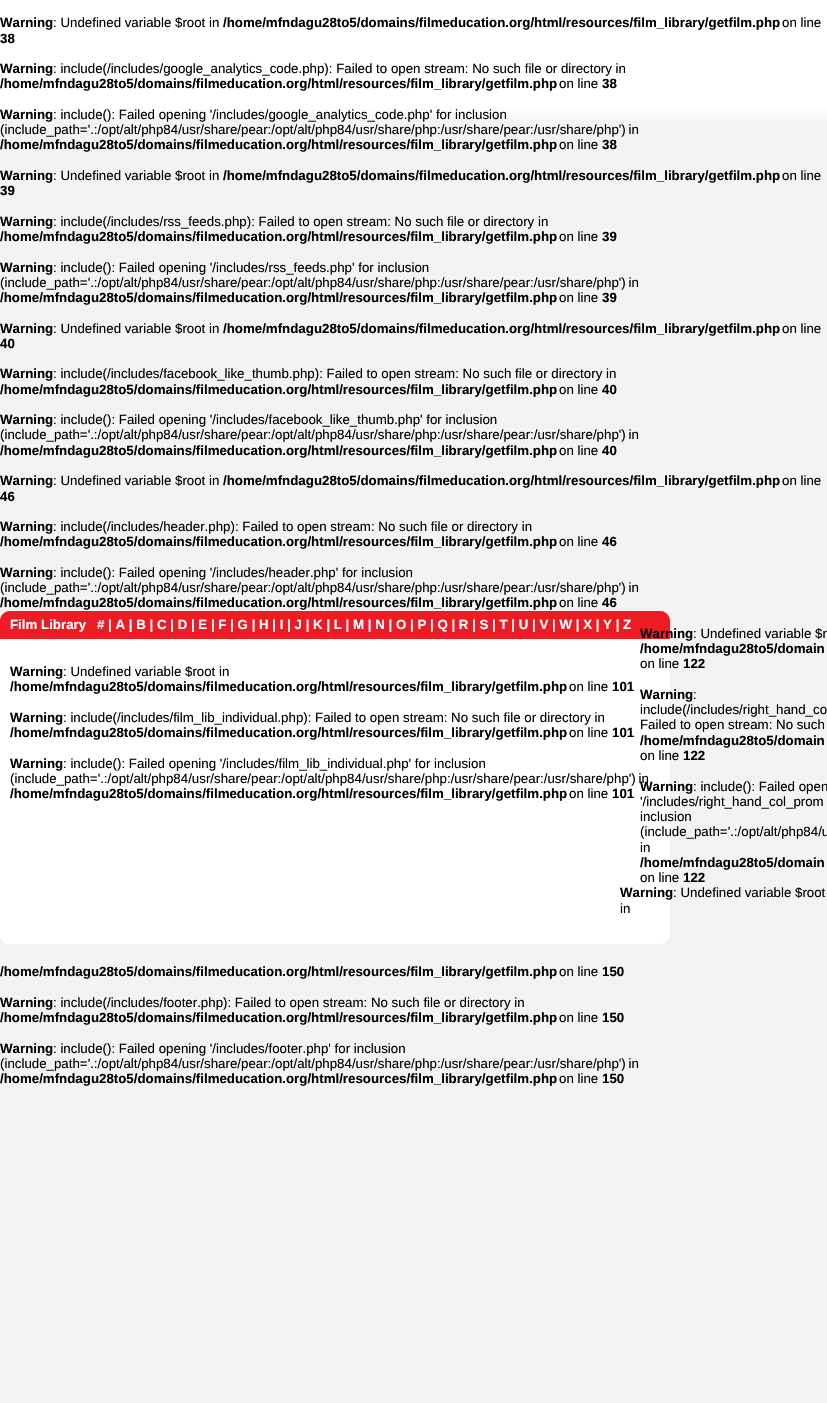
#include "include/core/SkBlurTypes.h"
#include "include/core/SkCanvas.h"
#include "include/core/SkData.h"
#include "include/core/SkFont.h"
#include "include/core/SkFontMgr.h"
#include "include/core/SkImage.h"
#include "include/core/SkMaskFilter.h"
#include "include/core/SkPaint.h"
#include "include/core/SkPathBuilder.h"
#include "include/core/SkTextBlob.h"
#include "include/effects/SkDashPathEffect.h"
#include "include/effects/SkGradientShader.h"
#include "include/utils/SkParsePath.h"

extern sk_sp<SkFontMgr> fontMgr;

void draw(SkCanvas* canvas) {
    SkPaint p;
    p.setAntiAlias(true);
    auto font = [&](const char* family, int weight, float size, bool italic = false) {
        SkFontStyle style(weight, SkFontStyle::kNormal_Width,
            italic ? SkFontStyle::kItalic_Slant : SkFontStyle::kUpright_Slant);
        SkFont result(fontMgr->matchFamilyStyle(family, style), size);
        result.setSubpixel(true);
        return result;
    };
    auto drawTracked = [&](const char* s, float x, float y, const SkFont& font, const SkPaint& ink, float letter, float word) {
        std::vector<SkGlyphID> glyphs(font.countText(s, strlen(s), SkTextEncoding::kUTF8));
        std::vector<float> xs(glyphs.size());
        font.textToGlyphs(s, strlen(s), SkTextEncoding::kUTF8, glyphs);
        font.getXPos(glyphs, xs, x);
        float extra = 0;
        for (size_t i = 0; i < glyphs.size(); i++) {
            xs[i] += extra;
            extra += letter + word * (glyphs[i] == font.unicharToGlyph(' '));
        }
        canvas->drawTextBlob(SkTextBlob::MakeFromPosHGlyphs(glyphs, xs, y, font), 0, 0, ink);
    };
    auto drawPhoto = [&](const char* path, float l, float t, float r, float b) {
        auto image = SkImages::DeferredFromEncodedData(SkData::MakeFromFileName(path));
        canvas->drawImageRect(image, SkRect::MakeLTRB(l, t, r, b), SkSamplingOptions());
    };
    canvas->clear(0xFFF3F3F3);
    drawPhoto("media/1.png", 0, 0, 827, 119);
    auto font1 = font("Liberation Sans", 700, 13.3f);
    p.setColor(0xFF000000);
    canvas->drawString("Warning", 0, 27, font1, p);
    auto font2 = font("Liberation Sans", 400, 13.3f);
    canvas->drawString(": Undefined variable $root in", 53, 27, font2, p);
    canvas->drawString("/home/mfndagu28to5/domains/filmeducation.org/html/resources/film_library/getfilm.php", 223, 27, font1, p);
    canvas->drawString("on line", 782, 27, font2, p);
    canvas->drawString("38", 0, 43, font1, p);
    canvas->drawString("Warning", 0, 73, font1, p);
    canvas->drawString(": include(/includes/google_analytics_code.php): Failed to open stream: No such file or directory in", 53, 73, font2, p);
    canvas->drawString("/home/mfndagu28to5/domains/filmeducation.org/html/resources/film_library/getfilm.php", 0, 88, font1, p);
    canvas->drawString("on line", 559, 88, font2, p);
    canvas->drawString("38", 602, 88, font1, p);
    canvas->drawString("Warning", 0, 119, font1, p);
    canvas->drawString(": include(): Failed opening '/includes/google_analytics_code.php' for inclusion", 53, 119, font2, p);
    drawTracked("(include_path='.:/opt/alt/php84/usr/share/pear:/opt/alt/php84/usr/share/php:/usr/share/pear:/usr/share/php') in", 0, 134, font2, p, 0, -1);
    canvas->drawString("/home/mfndagu28to5/domains/filmeducation.org/html/resources/film_library/getfilm.php", 0, 149, font1, p);
    canvas->drawString("on line", 559, 149, font2, p);
    canvas->drawString("38", 602, 149, font1, p);
    canvas->drawString("Warning", 0, 180, font1, p);
    canvas->drawString(": Undefined variable $root in", 53, 180, font2, p);
    canvas->drawString("/home/mfndagu28to5/domains/filmeducation.org/html/resources/film_library/getfilm.php", 223, 180, font1, p);
    canvas->drawString("on line", 782, 180, font2, p);
    canvas->drawString("39", 0, 195, font1, p);
    canvas->drawString("Warning", 0, 226, font1, p);
    canvas->drawString(": include(/includes/rss_feeds.php): Failed to open stream: No such file or directory in", 53, 226, font2, p);
    canvas->drawString("/home/mfndagu28to5/domains/filmeducation.org/html/resources/film_library/getfilm.php", 0, 241, font1, p);
    canvas->drawString("on line", 559, 241, font2, p);
    canvas->drawString("39", 602, 241, font1, p);
    canvas->drawString("Warning", 0, 272, font1, p);
    canvas->drawString(": include(): Failed opening '/includes/rss_feeds.php' for inclusion", 53, 272, font2, p);
    drawTracked("(include_path='.:/opt/alt/php84/usr/share/pear:/opt/alt/php84/usr/share/php:/usr/share/pear:/usr/share/php') in", 0, 287, font2, p, 0, -1);
    canvas->drawString("/home/mfndagu28to5/domains/filmeducation.org/html/resources/film_library/getfilm.php", 0, 302, font1, p);
    canvas->drawString("on line", 559, 302, font2, p);
    canvas->drawString("39", 602, 302, font1, p);
    canvas->drawString("Warning", 0, 333, font1, p);
    canvas->drawString(": Undefined variable $root in", 53, 333, font2, p);
    canvas->drawString("/home/mfndagu28to5/domains/filmeducation.org/html/resources/film_library/getfilm.php", 223, 333, font1, p);
    canvas->drawString("on line", 782, 333, font2, p);
    canvas->drawString("40", 0, 348, font1, p);
    canvas->drawString("Warning", 0, 378, font1, p);
    canvas->drawString(": include(/includes/facebook_like_thumb.php): Failed to open stream: No such file or directory in", 53, 378, font2, p);
    canvas->drawString("/home/mfndagu28to5/domains/filmeducation.org/html/resources/film_library/getfilm.php", 0, 394, font1, p);
    canvas->drawString("on line", 559, 394, font2, p);
    canvas->drawString("40", 602, 394, font1, p);
    canvas->drawString("Warning", 0, 424, font1, p);
    canvas->drawString(": include(): Failed opening '/includes/facebook_like_thumb.php' for inclusion", 53, 424, font2, p);
    drawTracked("(include_path='.:/opt/alt/php84/usr/share/pear:/opt/alt/php84/usr/share/php:/usr/share/pear:/usr/share/php') in", 0, 439, font2, p, 0, -1);
    canvas->drawString("/home/mfndagu28to5/domains/filmeducation.org/html/resources/film_library/getfilm.php", 0, 455, font1, p);
    canvas->drawString("on line", 559, 455, font2, p);
    canvas->drawString("40", 602, 455, font1, p);
    canvas->drawString("Warning", 0, 485, font1, p);
    canvas->drawString(": Undefined variable $root in", 53, 485, font2, p);
    canvas->drawString("/home/mfndagu28to5/domains/filmeducation.org/html/resources/film_library/getfilm.php", 223, 485, font1, p);
    canvas->drawString("on line", 782, 485, font2, p);
    canvas->drawString("46", 0, 501, font1, p);
    canvas->drawString("Warning", 0, 531, font1, p);
    canvas->drawString(": include(/includes/header.php): Failed to open stream: No such file or directory in", 53, 531, font2, p);
    canvas->drawString("/home/mfndagu28to5/domains/filmeducation.org/html/resources/film_library/getfilm.php", 0, 546, font1, p);
    canvas->drawString("on line", 559, 546, font2, p);
    canvas->drawString("46", 602, 546, font1, p);
    canvas->drawString("Warning", 0, 577, font1, p);
    canvas->drawString(": include(): Failed opening '/includes/header.php' for inclusion", 53, 577, font2, p);
    drawTracked("(include_path='.:/opt/alt/php84/usr/share/pear:/opt/alt/php84/usr/share/php:/usr/share/pear:/usr/share/php') in", 0, 592, font2, p, 0, -1);
    canvas->drawString("/home/mfndagu28to5/domains/filmeducation.org/html/resources/film_library/getfilm.php", 0, 607, font1, p);
    canvas->drawString("on line", 559, 607, font2, p);
    canvas->drawString("46", 602, 607, font1, p);
    p.setColor(0xFFFFFFFF);
    canvas->drawRect(SkRect::MakeLTRB(0, 639, 670, 944), p);
    drawPhoto("media/2.png", 0, 936, 670, 944);
    p.setColor(0xFFED1C24);
    canvas->drawRect(SkRect::MakeLTRB(0, 611, 670, 639), p);
    drawPhoto("media/3.png", 0, 611, 670, 620);
    p.setColor(0xFFFFFFFF);
    canvas->drawString("Film Library", 10, 629, font1, p);
    canvas->drawString("# | A | B | C | D | E | F | G | H | I | J | K | L | M | N | O | P | Q | R | S | T | U | V | W | X | Y | Z", 97, 629, font1, p);
    p.setColor(0xFF000000);
    canvas->drawString("Warning", 10, 676, font1, p);
    canvas->drawString(": Undefined variable $root in", 63, 676, font2, p);
    canvas->drawString("/home/mfndagu28to5/domains/filmeducation.org/html/resources/film_library/getfilm.php", 10, 691, font1, p);
    canvas->drawString("on line", 569, 691, font2, p);
    canvas->drawString("101", 612, 691, font1, p);
    canvas->drawString("Warning", 10, 722, font1, p);
    canvas->drawString(": include(/includes/film_lib_individual.php): Failed to open stream: No such file or directory in", 63, 722, font2, p);
    canvas->drawString("/home/mfndagu28to5/domains/filmeducation.org/html/resources/film_library/getfilm.php", 10, 737, font1, p);
    canvas->drawString("on line", 569, 737, font2, p);
    canvas->drawString("101", 612, 737, font1, p);
    canvas->drawString("Warning", 10, 768, font1, p);
    canvas->drawString(": include(): Failed opening '/includes/film_lib_individual.php' for inclusion", 63, 768, font2, p);
    drawTracked("(include_path='.:/opt/alt/php84/usr/share/pear:/opt/alt/php84/usr/share/php:/usr/share/pear:/usr/share/php') in", 10, 783, font2, p, 0, -1);
    canvas->drawString("/home/mfndagu28to5/domains/filmeducation.org/html/resources/film_library/getfilm.php", 10, 798, font1, p);
    canvas->drawString("on line", 569, 798, font2, p);
    canvas->drawString("101", 612, 798, font1, p);
    canvas->drawString("Warning", 640, 638, font1, p);
    canvas->drawString(": Undefined variable $r", 693, 638, font2, p);
    canvas->drawString("/home/mfndagu28to5/domain", 640, 653, font1, p);
    canvas->drawString("on line", 640, 668, font2, p);
    canvas->drawString("122", 683, 668, font1, p);
    canvas->drawString("Warning", 640, 699, font1, p);
    {
        const struct { const char* s; float x, y; } items[] = {
            {":", 693, 699},
            {"include(/includes/right_hand_co", 640, 714},
            {"Failed to open stream: No such", 640, 729},
        };
        for (auto [s, x, y] : items) {
            canvas->drawString(s, x, y, font2, p);
        }
    }
    canvas->drawString("/home/mfndagu28to5/domain", 640, 745, font1, p);
    canvas->drawString("on line", 640, 760, font2, p);
    canvas->drawString("122", 683, 760, font1, p);
    canvas->drawString("Warning", 640, 791, font1, p);
    {
        const struct { const char* s; float x, y; } items[] = {
            {": include(): Failed open", 693, 791},
            {"'/includes/right_hand_col_prom", 640, 806},
            {"inclusion", 640, 821},
            {"(include_path='.:/opt/alt/php84/u", 640, 836},
            {"in", 640, 852},
        };
        for (auto [s, x, y] : items) {
            canvas->drawString(s, x, y, font2, p);
        }
    }
    canvas->drawString("/home/mfndagu28to5/domain", 640, 867, font1, p);
    canvas->drawString("on line", 640, 882, font2, p);
    canvas->drawString("122", 683, 882, font1, p);
    canvas->drawString("Warning", 620, 897, font1, p);
    canvas->drawString(": Undefined variable $root", 673, 897, font2, p);
    canvas->drawString("in", 620, 913, font2, p);
    canvas->drawString("/home/mfndagu28to5/domains/filmeducation.org/html/resources/film_library/getfilm.php", 0, 976, font1, p);
    canvas->drawString("on line", 559, 976, font2, p);
    canvas->drawString("150", 602, 976, font1, p);
    canvas->drawString("Warning", 0, 1007, font1, p);
    canvas->drawString(": include(/includes/footer.php): Failed to open stream: No such file or directory in", 53, 1007, font2, p);
    canvas->drawString("/home/mfndagu28to5/domains/filmeducation.org/html/resources/film_library/getfilm.php", 0, 1022, font1, p);
    canvas->drawString("on line", 559, 1022, font2, p);
    canvas->drawString("150", 602, 1022, font1, p);
    canvas->drawString("Warning", 0, 1053, font1, p);
    canvas->drawString(": include(): Failed opening '/includes/footer.php' for inclusion", 53, 1053, font2, p);
    drawTracked("(include_path='.:/opt/alt/php84/usr/share/pear:/opt/alt/php84/usr/share/php:/usr/share/pear:/usr/share/php') in", 0, 1068, font2, p, 0, -1);
    canvas->drawString("/home/mfndagu28to5/domains/filmeducation.org/html/resources/film_library/getfilm.php", 0, 1083, font1, p);
    canvas->drawString("on line", 559, 1083, font2, p);
    canvas->drawString("150", 602, 1083, font1, p);
}
